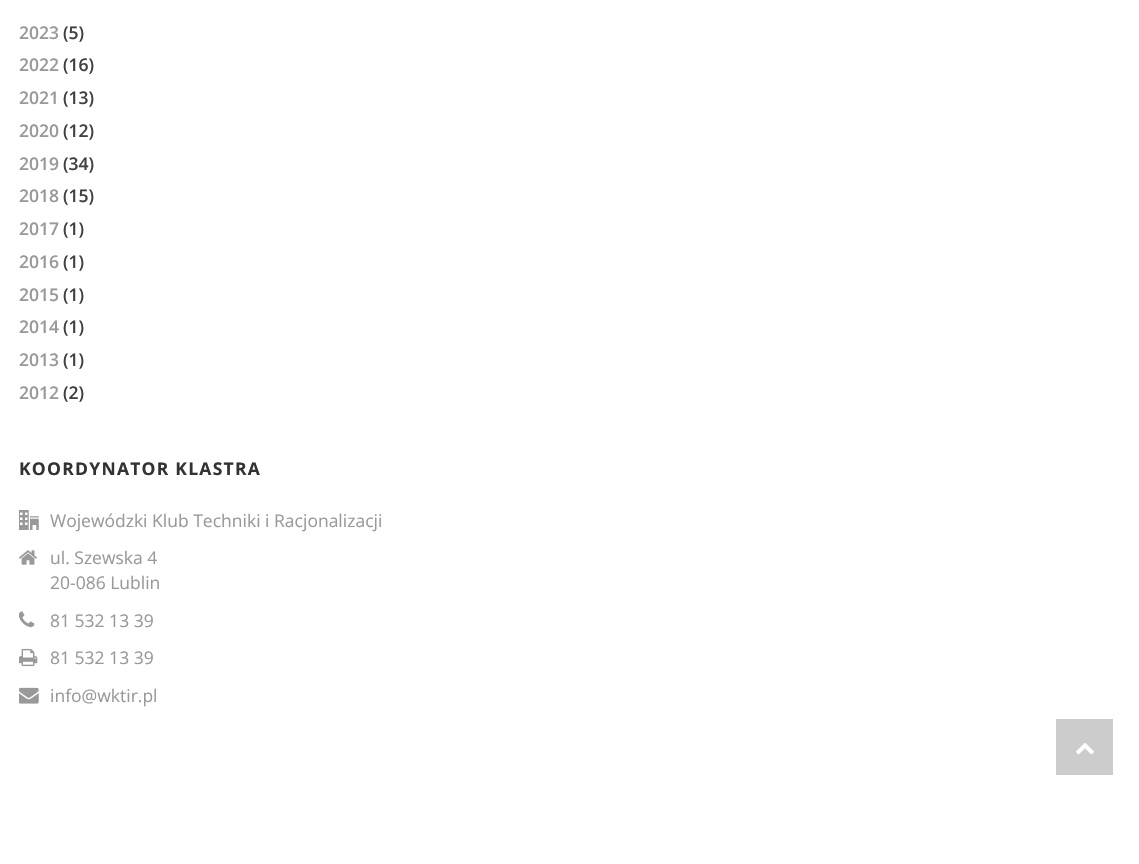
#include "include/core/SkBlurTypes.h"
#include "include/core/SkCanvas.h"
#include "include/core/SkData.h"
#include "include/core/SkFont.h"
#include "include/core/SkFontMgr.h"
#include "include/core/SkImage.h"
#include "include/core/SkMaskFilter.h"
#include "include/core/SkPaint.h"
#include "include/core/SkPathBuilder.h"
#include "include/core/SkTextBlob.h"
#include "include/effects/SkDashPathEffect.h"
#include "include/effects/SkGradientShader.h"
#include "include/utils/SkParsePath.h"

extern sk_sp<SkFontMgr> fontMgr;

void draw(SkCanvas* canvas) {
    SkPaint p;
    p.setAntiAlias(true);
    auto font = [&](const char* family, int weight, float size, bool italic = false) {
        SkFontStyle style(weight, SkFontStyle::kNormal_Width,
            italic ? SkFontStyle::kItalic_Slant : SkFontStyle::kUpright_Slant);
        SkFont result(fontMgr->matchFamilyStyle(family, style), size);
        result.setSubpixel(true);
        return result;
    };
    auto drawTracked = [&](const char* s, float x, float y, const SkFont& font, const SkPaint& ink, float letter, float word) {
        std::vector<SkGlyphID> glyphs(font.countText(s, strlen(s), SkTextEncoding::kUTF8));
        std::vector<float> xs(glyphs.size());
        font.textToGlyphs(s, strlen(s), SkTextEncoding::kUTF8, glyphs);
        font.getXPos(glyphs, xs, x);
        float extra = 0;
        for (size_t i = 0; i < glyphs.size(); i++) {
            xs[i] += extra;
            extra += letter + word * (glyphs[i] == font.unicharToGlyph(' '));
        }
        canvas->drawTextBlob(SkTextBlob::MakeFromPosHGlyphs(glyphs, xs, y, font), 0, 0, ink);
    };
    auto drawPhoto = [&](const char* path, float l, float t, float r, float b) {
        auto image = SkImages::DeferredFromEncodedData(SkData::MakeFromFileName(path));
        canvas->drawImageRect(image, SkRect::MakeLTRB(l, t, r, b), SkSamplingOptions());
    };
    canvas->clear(0xFFFFFFFF);
    auto font1 = font("Open Sans", 600, 17.5f);
    p.setColor(0xFF999999);
    canvas->drawString("2023", 19, 39, font1, p);
    p.setColor(0xFF404040);
    canvas->drawString("(5)", 63, 39, font1, p);
    p.setColor(0xFF999999);
    canvas->drawString("2022", 19, 71, font1, p);
    p.setColor(0xFF404040);
    canvas->drawString("(16)", 63, 71, font1, p);
    p.setColor(0xFF999999);
    canvas->drawString("2021", 19, 104, font1, p);
    p.setColor(0xFF404040);
    canvas->drawString("(13)", 63, 104, font1, p);
    p.setColor(0xFF999999);
    canvas->drawString("2020", 19, 137, font1, p);
    p.setColor(0xFF404040);
    canvas->drawString("(12)", 63, 137, font1, p);
    p.setColor(0xFF999999);
    canvas->drawString("2019", 19, 170, font1, p);
    p.setColor(0xFF404040);
    canvas->drawString("(34)", 63, 170, font1, p);
    p.setColor(0xFF999999);
    canvas->drawString("2018", 19, 202, font1, p);
    p.setColor(0xFF404040);
    canvas->drawString("(15)", 63, 202, font1, p);
    p.setColor(0xFF999999);
    canvas->drawString("2017", 19, 235, font1, p);
    p.setColor(0xFF404040);
    canvas->drawString("(1)", 63, 235, font1, p);
    p.setColor(0xFF999999);
    canvas->drawString("2016", 19, 268, font1, p);
    p.setColor(0xFF404040);
    canvas->drawString("(1)", 63, 268, font1, p);
    p.setColor(0xFF999999);
    canvas->drawString("2015", 19, 301, font1, p);
    p.setColor(0xFF404040);
    canvas->drawString("(1)", 63, 301, font1, p);
    p.setColor(0xFF999999);
    canvas->drawString("2014", 19, 333, font1, p);
    p.setColor(0xFF404040);
    canvas->drawString("(1)", 63, 333, font1, p);
    p.setColor(0xFF999999);
    canvas->drawString("2013", 19, 366, font1, p);
    p.setColor(0xFF404040);
    canvas->drawString("(1)", 63, 366, font1, p);
    p.setColor(0xFF999999);
    canvas->drawString("2012", 19, 399, font1, p);
    p.setColor(0xFF404040);
    canvas->drawString("(2)", 63, 399, font1, p);
    auto font2 = font("Open Sans", 700, 17.5f);
    p.setColor(0xFF333333);
    drawTracked("KOORDYNATOR KLASTRA", 19, 475, font2, p, 1.25f, 0);
    drawPhoto("media/1.png", 19, 510, 39, 530);
    auto font3 = font("Open Sans", 400, 17.5f);
    p.setColor(0xFF999999);
    canvas->drawString("Wojewódzki Klub Techniki i Racjonalizacji", 50, 527, font3, p);
    drawPhoto("media/2.png", 19, 550, 37, 565);
    canvas->drawString("ul. Szewska 4", 50, 564, font3, p);
    canvas->drawString("20-086 Lublin", 50, 589, font3, p);
    drawPhoto("media/3.png", 19, 611, 35, 628);
    canvas->drawString("81 532 13 39", 50, 627, font3, p);
    drawPhoto("media/4.png", 19, 648, 38, 667);
    canvas->drawString("81 532 13 39", 50, 664, font3, p);
    drawPhoto("media/5.png", 19, 687, 39, 704);
    canvas->drawString("info@wktir.pl", 50, 702, font3, p);
    p.setColor(0xFFCCCCCC);
    canvas->drawRect(SkRect::MakeLTRB(1056, 719, 1113, 775), p);
    drawPhoto("media/6.png", 1076, 743, 1094, 755);
}
